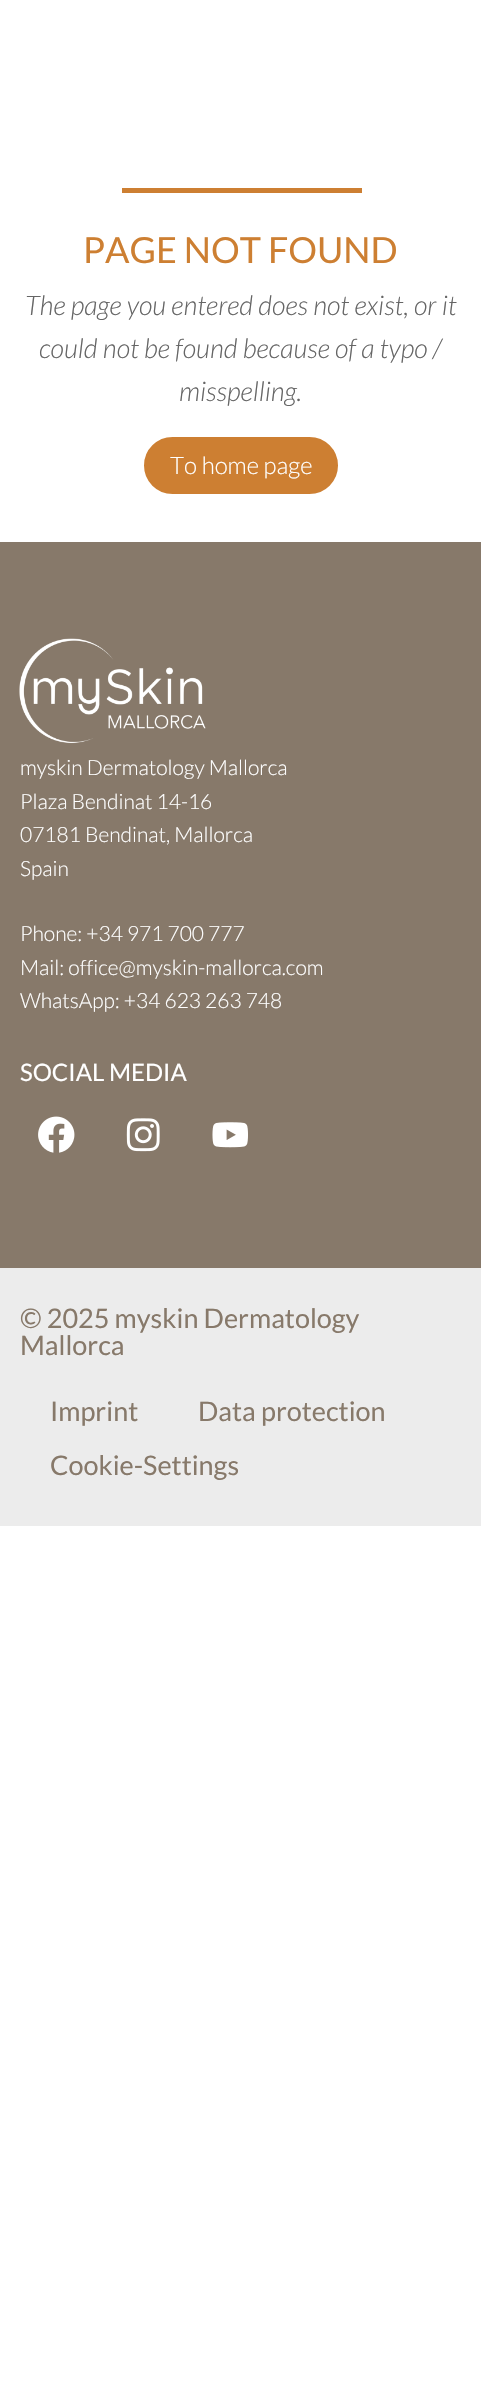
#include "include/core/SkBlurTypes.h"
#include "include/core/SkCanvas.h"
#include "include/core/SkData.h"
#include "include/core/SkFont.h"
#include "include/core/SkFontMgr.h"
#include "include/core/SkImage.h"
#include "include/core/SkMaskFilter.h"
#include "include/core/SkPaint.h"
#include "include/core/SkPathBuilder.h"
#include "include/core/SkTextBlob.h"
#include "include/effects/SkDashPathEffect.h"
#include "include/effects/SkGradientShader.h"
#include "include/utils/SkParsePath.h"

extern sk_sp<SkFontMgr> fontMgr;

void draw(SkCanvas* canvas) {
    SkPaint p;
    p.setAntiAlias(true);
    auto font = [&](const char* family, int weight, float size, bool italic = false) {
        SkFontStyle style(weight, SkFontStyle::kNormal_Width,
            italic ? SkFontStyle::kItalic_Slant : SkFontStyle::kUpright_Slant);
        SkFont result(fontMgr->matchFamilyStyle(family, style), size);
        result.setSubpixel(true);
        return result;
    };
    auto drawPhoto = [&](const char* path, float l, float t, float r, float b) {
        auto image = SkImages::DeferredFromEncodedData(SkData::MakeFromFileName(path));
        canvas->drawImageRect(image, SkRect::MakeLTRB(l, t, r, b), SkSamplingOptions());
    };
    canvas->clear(0xFFFFFFFF);
    p.setColor(0xFFCD7F32);
    canvas->drawRect(SkRect::MakeLTRB(122, 188, 362, 193), p);
    auto font1 = font("Lato", 400, 36);
    canvas->drawString("PAGE NOT FOUND", 83, 263, font1, p);
    auto font2 = font("Lato", 300, 27, true);
    p.setColor(0xFF656565);
    {
        const struct { const char* s; float x, y; } items[] = {
            {"The page you entered does not exist, or it", 25, 315},
            {"could not be found because of a typo /", 39, 358},
            {"misspelling.", 179, 401},
        };
        for (auto [s, x, y] : items) {
            canvas->drawString(s, x, y, font2, p);
        }
    }
    p.setColor(0xFFCD7F32);
    canvas->drawRoundRect(SkRect::MakeLTRB(145, 438, 337, 493), 27.5f, 27.5f, p);
    p.setStyle(SkPaint::kStroke_Style);
    p.setStrokeWidth(2);
    canvas->drawRoundRect(SkRect::MakeLTRB(145, 438, 337, 493), 27.5f, 27.5f, p);
    auto font3 = font("Lato", 300, 24);
    p.setStyle(SkPaint::kFill_Style);
    p.setColor(0xFFFFFFFF);
    canvas->drawString("To home page", 170, 474, font3, p);
    p.setColor(0xFF87796A);
    canvas->drawRect(SkRect::MakeLTRB(0, 542, 481, 1268), p);
    drawPhoto("media/1.png", 19, 638, 206, 744);
    auto font4 = font("Lato", 300, 21);
    p.setColor(0xFFFFFFFF);
    {
        const struct { const char* s; float x, y; } items[] = {
            {"myskin Dermatology Mallorca", 20, 775},
            {"Plaza Bendinat 14-16", 20, 809},
            {"07181 Bendinat, Mallorca", 20, 842},
            {"Spain", 20, 876},
            {"Phone: +34 971 700 777", 20, 941},
            {"Mail: office@myskin-mallorca.com", 20, 975},
            {"WhatsApp: +34 623 263 748", 20, 1008},
        };
        for (auto [s, x, y] : items) {
            canvas->drawString(s, x, y, font4, p);
        }
    }
    auto font5 = font("Lato", 400, 24);
    canvas->drawString("SOCIAL MEDIA", 20, 1081, font5, p);
    drawPhoto("media/2.png", 38, 1116, 75, 1153);
    drawPhoto("media/3.png", 126, 1118, 160, 1152);
    drawPhoto("media/4.png", 212, 1122, 248, 1148);
    p.setColor(0xFFECECEC);
    canvas->drawRect(SkRect::MakeLTRB(0, 1268, 481, 1526), p);
    auto font6 = font("Lato", 400, 27);
    p.setColor(0xFF87796A);
    {
        const struct { const char* s; float x, y; } items[] = {
            {"© 2025 myskin Dermatology", 20, 1328},
            {"Mallorca", 20, 1355},
            {"Imprint", 50, 1421},
            {"Data protection", 198, 1421},
            {"Cookie-Settings", 50, 1475},
        };
        for (auto [s, x, y] : items) {
            canvas->drawString(s, x, y, font6, p);
        }
    }
}
